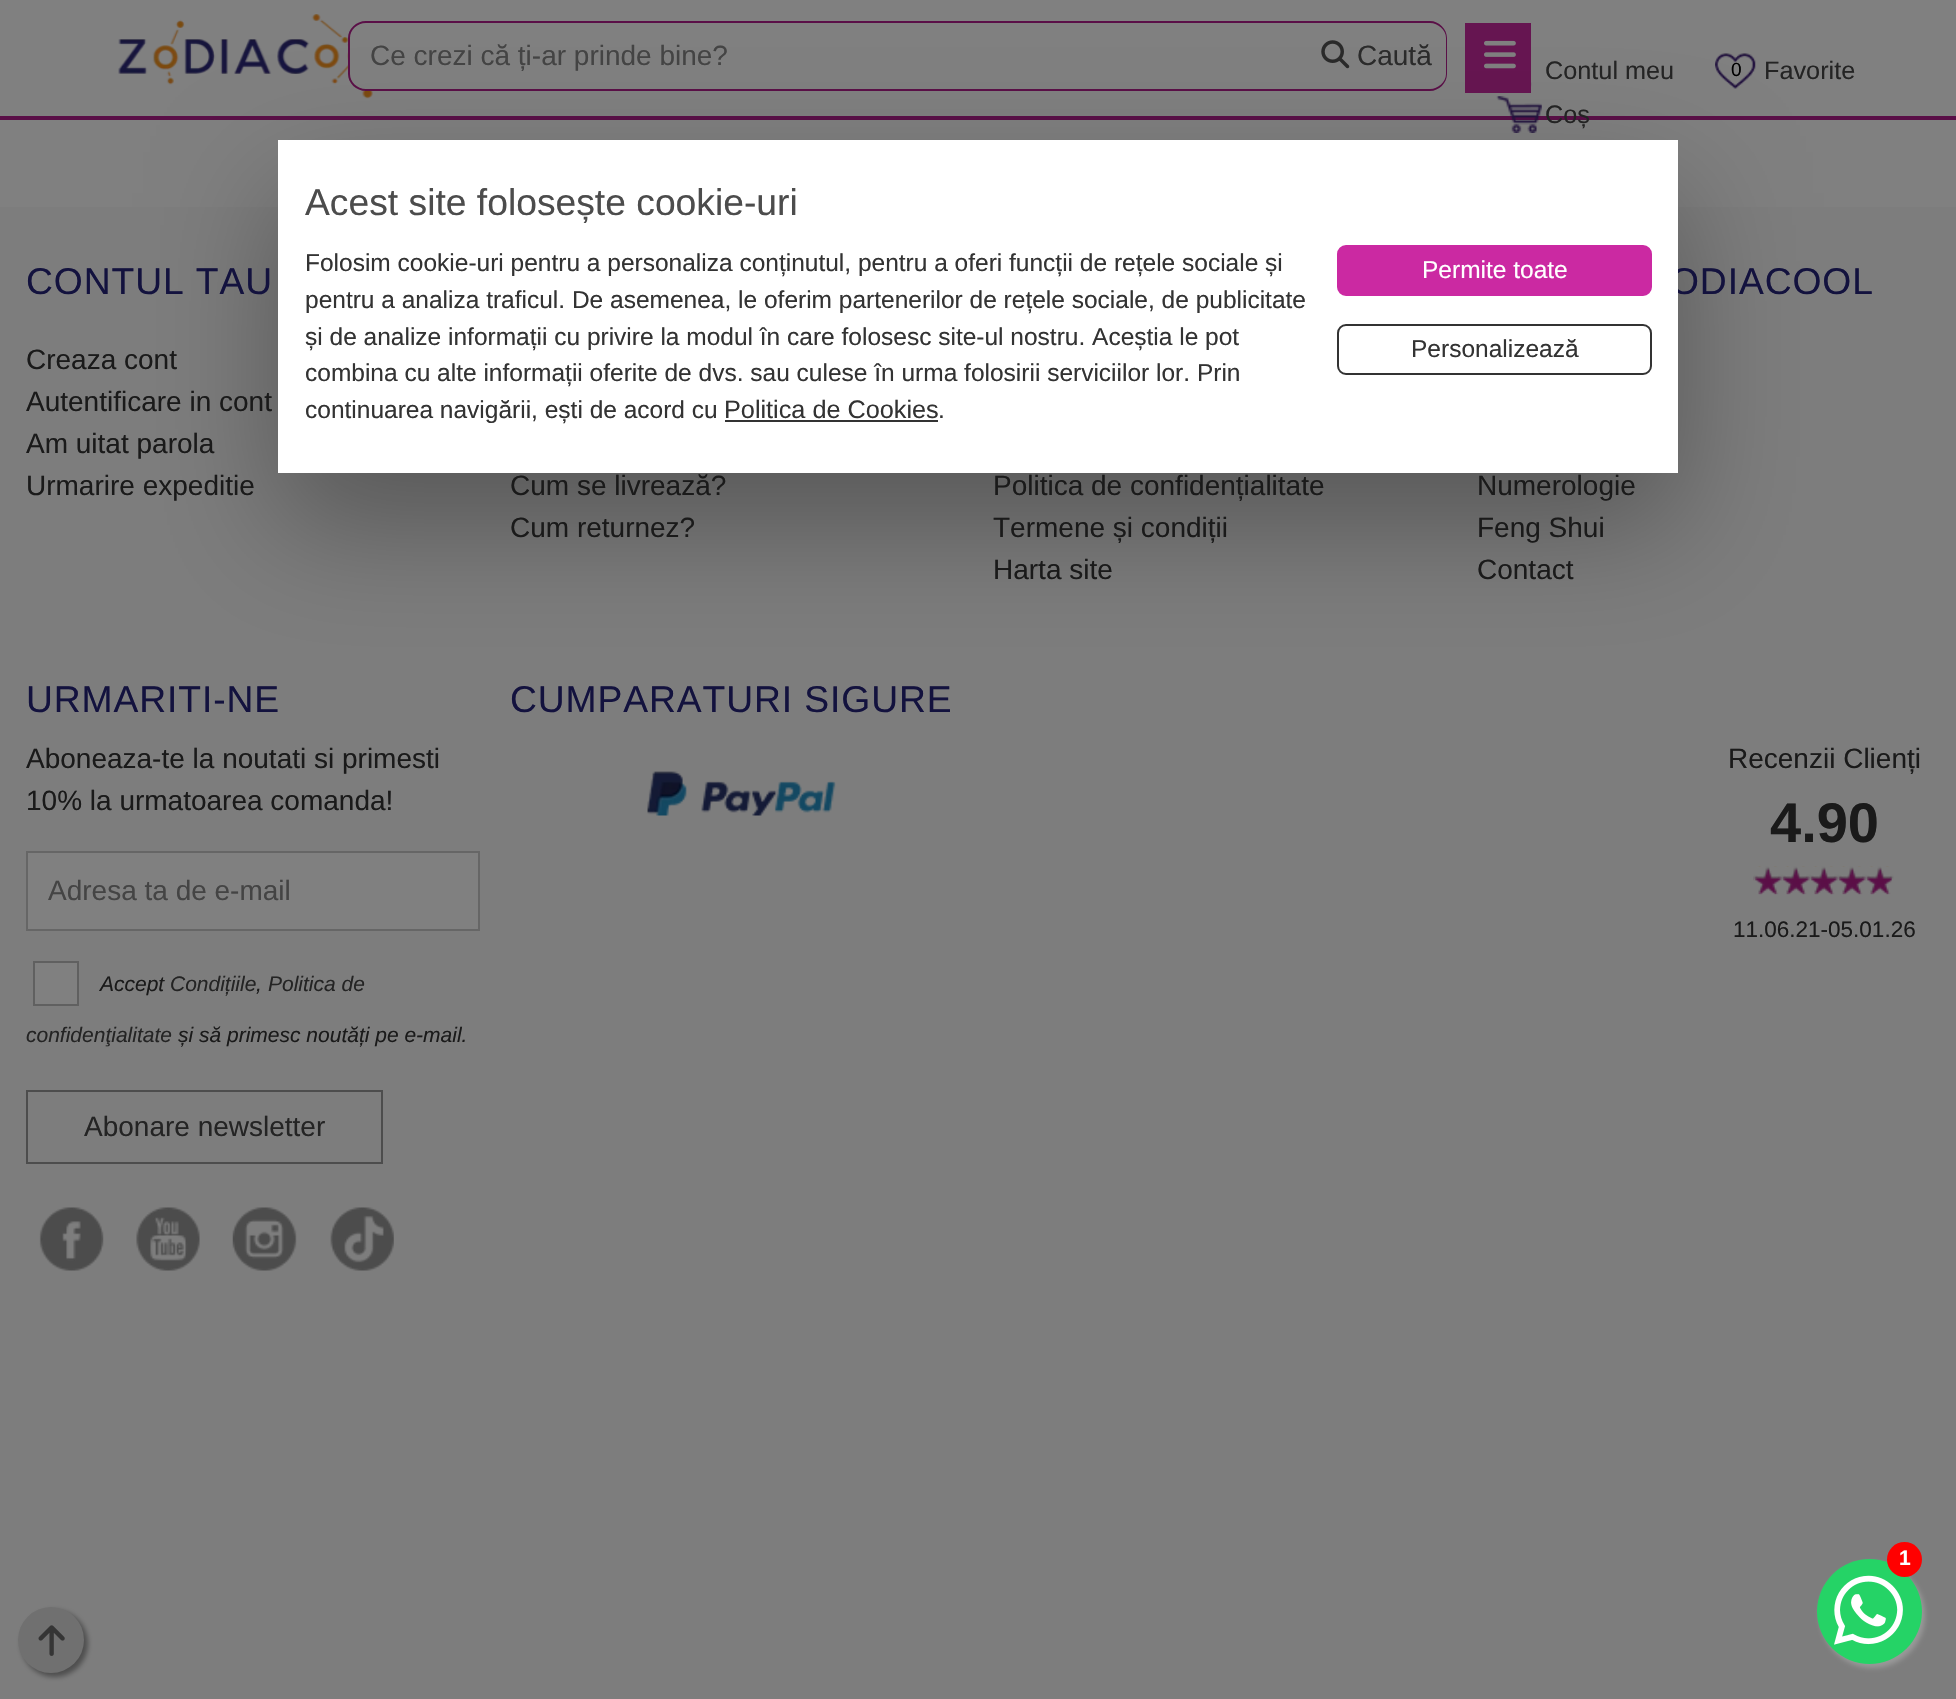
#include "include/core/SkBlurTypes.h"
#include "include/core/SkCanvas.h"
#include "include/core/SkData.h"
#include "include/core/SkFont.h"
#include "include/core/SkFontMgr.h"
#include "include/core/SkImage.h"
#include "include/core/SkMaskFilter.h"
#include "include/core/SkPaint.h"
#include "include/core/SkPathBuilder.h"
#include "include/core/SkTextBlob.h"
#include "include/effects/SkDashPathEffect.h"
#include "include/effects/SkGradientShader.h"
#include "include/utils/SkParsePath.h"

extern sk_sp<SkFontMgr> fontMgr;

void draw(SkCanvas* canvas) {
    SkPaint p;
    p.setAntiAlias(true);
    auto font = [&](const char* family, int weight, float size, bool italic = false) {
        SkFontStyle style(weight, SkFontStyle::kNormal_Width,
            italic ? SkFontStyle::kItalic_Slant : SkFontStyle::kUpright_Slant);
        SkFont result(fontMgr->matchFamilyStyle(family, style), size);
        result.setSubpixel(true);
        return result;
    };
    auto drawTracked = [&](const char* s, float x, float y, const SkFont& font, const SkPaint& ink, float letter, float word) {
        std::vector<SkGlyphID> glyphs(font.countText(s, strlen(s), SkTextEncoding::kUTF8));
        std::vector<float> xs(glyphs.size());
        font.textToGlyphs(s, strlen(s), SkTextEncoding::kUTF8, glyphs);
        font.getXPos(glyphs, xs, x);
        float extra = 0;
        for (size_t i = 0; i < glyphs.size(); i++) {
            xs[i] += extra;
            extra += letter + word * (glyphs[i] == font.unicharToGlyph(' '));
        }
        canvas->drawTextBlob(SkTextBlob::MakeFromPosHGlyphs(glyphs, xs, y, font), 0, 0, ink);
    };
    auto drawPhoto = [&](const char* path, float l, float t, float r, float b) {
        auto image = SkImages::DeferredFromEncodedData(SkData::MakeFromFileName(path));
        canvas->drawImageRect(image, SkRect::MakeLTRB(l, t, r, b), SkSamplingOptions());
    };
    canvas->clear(0xFF808080);
    p.setColor(0xFF661551);
    canvas->drawRect(SkRect::MakeLTRB(1465, 23, 1531, 93), p);
    drawPhoto("media/1.png", 1484, 40, 1516, 69);
    p.setColor(0xFF5A0F47);
    canvas->drawRect(SkRect::MakeLTRB(0, 116, 1956, 120), p);
    drawPhoto("media/2.png", 118, 14, 373, 99);
    p.setColor(0xFF808080);
    canvas->drawRect(SkRect::MakeLTRB(348, 25, 373, 91), p);
    p.setColor(0xFF5A0F47);
    canvas->drawPath(SkPathBuilder(SkPathFillType::kEvenOdd).moveTo(366, 21).lineTo(1297, 21).lineTo(1297, 91).lineTo(366, 91).cubicTo(356, 91, 348, 83, 348, 74).lineTo(348, 38).cubicTo(348, 29, 356, 21, 366, 21).close().moveTo(366, 23).lineTo(1297, 23).lineTo(1297, 89).lineTo(366, 89).cubicTo(357, 89, 350, 82, 350, 74).lineTo(350, 38).cubicTo(350, 30, 357, 23, 366, 23).close().detach(), p);
    auto font1 = font("Liberation Sans", 400, 28);
    p.setColor(0xFF444444);
    canvas->drawString("Ce crezi că ți-ar prinde bine?", 370, 65, font1, p);
    p.setColor(0xFF808080);
    canvas->drawPath(SkPathBuilder().moveTo(1295, 21).lineTo(1429, 21).cubicTo(1439, 21, 1447, 29, 1447, 39).lineTo(1447, 73).cubicTo(1447, 83, 1439, 91, 1429, 91).lineTo(1295, 91).close().detach(), p);
    p.setColor(0xFF5A0F47);
    canvas->drawPath(SkPathBuilder(SkPathFillType::kEvenOdd).moveTo(1295, 21).lineTo(1430, 21).cubicTo(1439, 21, 1447, 29, 1447, 38).lineTo(1447, 74).cubicTo(1447, 83, 1439, 91, 1430, 91).lineTo(1295, 91).close().moveTo(1295, 23).lineTo(1430, 23).cubicTo(1438, 23, 1446, 30, 1446, 38).lineTo(1446, 74).cubicTo(1446, 82, 1438, 89, 1430, 89).lineTo(1295, 89).close().detach(), p);
    drawPhoto("media/3.png", 1321, 40, 1350, 69);
    p.setColor(0xFF2B2B2B);
    canvas->drawString("Caută", 1357, 65, font1, p);
    auto font2 = font("Liberation Sans", 400, 25.25f);
    p.setColor(0xFF242424);
    canvas->drawString("Contul meu", 1545, 79, font2, p);
    drawPhoto("media/4.png", 1531, 82, 1532, 87);
    drawPhoto("media/5.png", 1715, 53, 1756, 89);
    auto font3 = font("Liberation Sans", 400, 19);
    p.setColor(0xFF000000);
    canvas->drawString("0", 1731, 76, font3, p);
    p.setColor(0xFF242424);
    canvas->drawString("Favorite", 1764, 79, font2, p);
    drawPhoto("media/6.png", 1496, 96, 1542, 133);
    canvas->drawString("Coș", 1545, 123, font2, p);
    p.setColor(0xFF7D7D7D);
    canvas->drawRect(SkRect::MakeLTRB(0, 207, 1956, 1699), p);
    p.setColor(0x4D000000);
    p.setMaskFilter(SkMaskFilter::MakeBlur(kNormal_SkBlurStyle, 61));
    canvas->drawRect(SkRect::MakeLTRB(278, 193, 1678, 525), p);
    p.setMaskFilter(nullptr);
    auto font4 = font("Liberation Sans", 400, 37.25f);
    p.setColor(0xFF13123E);
    drawTracked("ODIACOOL", 1670, 294, font4, p, 0.9f, 0);
    p.setColor(0xFFFFFFFF);
    canvas->drawRect(SkRect::MakeLTRB(278, 140, 1678, 473), p);
    p.setColor(0xFF4C4C4C);
    canvas->drawString("Acest site folosește cookie-uri", 305, 215, font4, p);
    auto font5 = font("Liberation Sans", 400, 24.5f);
    p.setColor(0xFF333333);
    {
        const struct { const char* s; float x, y; } items[] = {
            {"Folosim cookie-uri pentru a personaliza conținutul, pentru a oferi funcții de rețele sociale și", 305, 271},
            {"pentru a analiza traficul. De asemenea, le oferim partenerilor de rețele sociale, de publicitate", 305, 308},
            {"și de analize informații cu privire la modul în care folosesc site-ul nostru. Aceștia le pot", 305, 345},
            {"combina cu alte informații oferite de dvs. sau culese în urma folosirii serviciilor lor. Prin", 305, 381},
            {"continuarea navigării, ești de acord cu", 305, 418},
        };
        for (auto [s, x, y] : items) {
            canvas->drawString(s, x, y, font5, p);
        }
    }
    canvas->drawString("Politica de Cookies", 724, 418, font2, p);
    canvas->drawRect(SkRect::MakeLTRB(725, 420, 938, 422), p);
    canvas->drawString(".", 938, 418, font5, p);
    p.setColor(0xFFCB29A2);
    canvas->drawRoundRect(SkRect::MakeLTRB(1338, 246, 1651, 295), 8, 8, p);
    p.setStyle(SkPaint::kStroke_Style);
    p.setStrokeWidth(2);
    canvas->drawRoundRect(SkRect::MakeLTRB(1338, 246, 1651, 295), 8, 8, p);
    p.setStyle(SkPaint::kFill_Style);
    p.setColor(0xFFFFFFFF);
    canvas->drawString("Permite toate", 1422, 278, font5, p);
    p.setStyle(SkPaint::kStroke_Style);
    p.setColor(0xFF333333);
    canvas->drawRoundRect(SkRect::MakeLTRB(1338, 325, 1651, 374), 8, 8, p);
    p.setStyle(SkPaint::kFill_Style);
    canvas->drawString("Personalizează", 1411, 357, font5, p);
    p.setColor(0xFF13123E);
    drawTracked("CONTUL TAU", 26, 294, font4, p, 0.9f, 0);
    p.setColor(0xFF1A1A1A);
    {
        const struct { const char* s; float x, y; } items[] = {
            {"Creaza cont", 26, 369},
            {"Autentificare in cont", 26, 411},
            {"Am uitat parola", 26, 453},
            {"Urmarire expeditie", 26, 495},
            {"Cum se livrează?", 510, 495},
            {"Cum returnez?", 510, 537},
            {"Politica de confidențialitate", 993, 495},
            {"Termene și condiții", 993, 537},
            {"Harta site", 993, 579},
            {"Numerologie", 1477, 495},
            {"Feng Shui", 1477, 537},
            {"Contact", 1477, 579},
        };
        for (auto [s, x, y] : items) {
            canvas->drawString(s, x, y, font1, p);
        }
    }
    p.setColor(0xFF13123E);
    drawTracked("URMARITI-NE", 26, 712, font4, p, 0.9f, 0);
    p.setColor(0xFF1A1A1A);
    canvas->drawString("Aboneaza-te la noutati si primesti", 26, 768, font1, p);
    canvas->drawString("10% la urmatoarea comanda!", 26, 810, font1, p);
    p.setColor(0xFF808080);
    canvas->drawRect(SkRect::MakeLTRB(27, 852, 479, 930), p);
    p.setStyle(SkPaint::kStroke_Style);
    p.setColor(0xFF666666);
    canvas->drawRect(SkRect::MakeLTRB(27, 852, 479, 930), p);
    p.setStyle(SkPaint::kFill_Style);
    p.setColor(0xFF444444);
    canvas->drawString("Adresa ta de e-mail", 48, 900, font1, p);
    p.setColor(0xFF808080);
    canvas->drawRect(SkRect::MakeLTRB(34, 962, 78, 1005), p);
    p.setStyle(SkPaint::kStroke_Style);
    p.setColor(0xFF606060);
    canvas->drawRect(SkRect::MakeLTRB(34, 962, 78, 1005), p);
    auto font6 = font("Liberation Sans", 400, 21, true);
    p.setStyle(SkPaint::kFill_Style);
    p.setColor(0xFF1A1A1A);
    canvas->drawString("Accept", 100, 991, font6, p);
    p.setColor(0xFF242424);
    canvas->drawString("Condițiile", 170, 991, font6, p);
    p.setColor(0xFF1A1A1A);
    canvas->drawString(",", 256, 991, font6, p);
    p.setColor(0xFF242424);
    canvas->drawString("Politica de", 268, 991, font6, p);
    canvas->drawString("confidenţialitate", 26, 1042, font6, p);
    p.setColor(0xFF1A1A1A);
    canvas->drawString("și să primesc noutăți pe e-mail.", 178, 1042, font6, p);
    p.setStyle(SkPaint::kStroke_Style);
    p.setColor(0xFF4D4D4D);
    canvas->drawRect(SkRect::MakeLTRB(27, 1091, 382, 1163), p);
    p.setStyle(SkPaint::kFill_Style);
    p.setColor(0xFF242424);
    canvas->drawString("Abonare newsletter", 84, 1136, font1, p);
    drawPhoto("media/7.png", 39, 1207, 104, 1271);
    drawPhoto("media/8.png", 136, 1207, 200, 1271);
    drawPhoto("media/9.png", 232, 1207, 297, 1271);
    drawPhoto("media/10.png", 330, 1207, 394, 1271);
    p.setColor(0xFF13123E);
    drawTracked("CUMPARATURI SIGURE", 510, 712, font4, p, 0.9f, 0);
    drawPhoto("media/11.png", 647, 771, 836, 816);
    p.setColor(0xFF1A1A1A);
    canvas->drawString("Recenzii Clienți", 1728, 768, font1, p);
    auto font7 = font("Liberation Sans", 700, 56);
    canvas->drawString("4.90", 1770, 842, font7, p);
    drawPhoto("media/12.png", 1753, 866, 1894, 894);
    drawPhoto("media/13.png", 1753, 866, 1892, 895);
    auto font8 = font("Liberation Sans", 400, 22.5f);
    canvas->drawString("11.06.21-05.01.26", 1733, 937, font8, p);
    p.setColor(0xFF999999);
    p.setMaskFilter(SkMaskFilter::MakeBlur(kNormal_SkBlurStyle, 2.5f));
    canvas->drawRoundRect(SkRect::MakeLTRB(1820, 1563, 1925, 1668), 52.5f, 52.5f, p);
    p.setMaskFilter(nullptr);
    p.setColor(0xFF25D366);
    canvas->drawCircle(1869.5f, 1611.5f, 52.5f, p);
    drawPhoto("media/14.png", 1834, 1575, 1903, 1645);
    p.setColor(0xFFFF0000);
    canvas->drawCircle(1904.5f, 1559.5f, 17.5f, p);
    auto font9 = font("Liberation Sans", 700, 21);
    p.setColor(0xFFFFFFFF);
    canvas->drawString("1", 1899, 1565, font9, p);
    p.setColor(0xFF4E4E4E);
    p.setMaskFilter(SkMaskFilter::MakeBlur(kNormal_SkBlurStyle, 2.5f));
    canvas->drawRoundRect(SkRect::MakeLTRB(21, 1610, 88, 1677), 33.5f, 33.5f, p);
    p.setMaskFilter(nullptr);
    p.setColor(0xFF707070);
    canvas->drawCircle(51, 1640, 33, p);
    drawPhoto("media/15.png", 38, 1625, 65, 1656);
}
